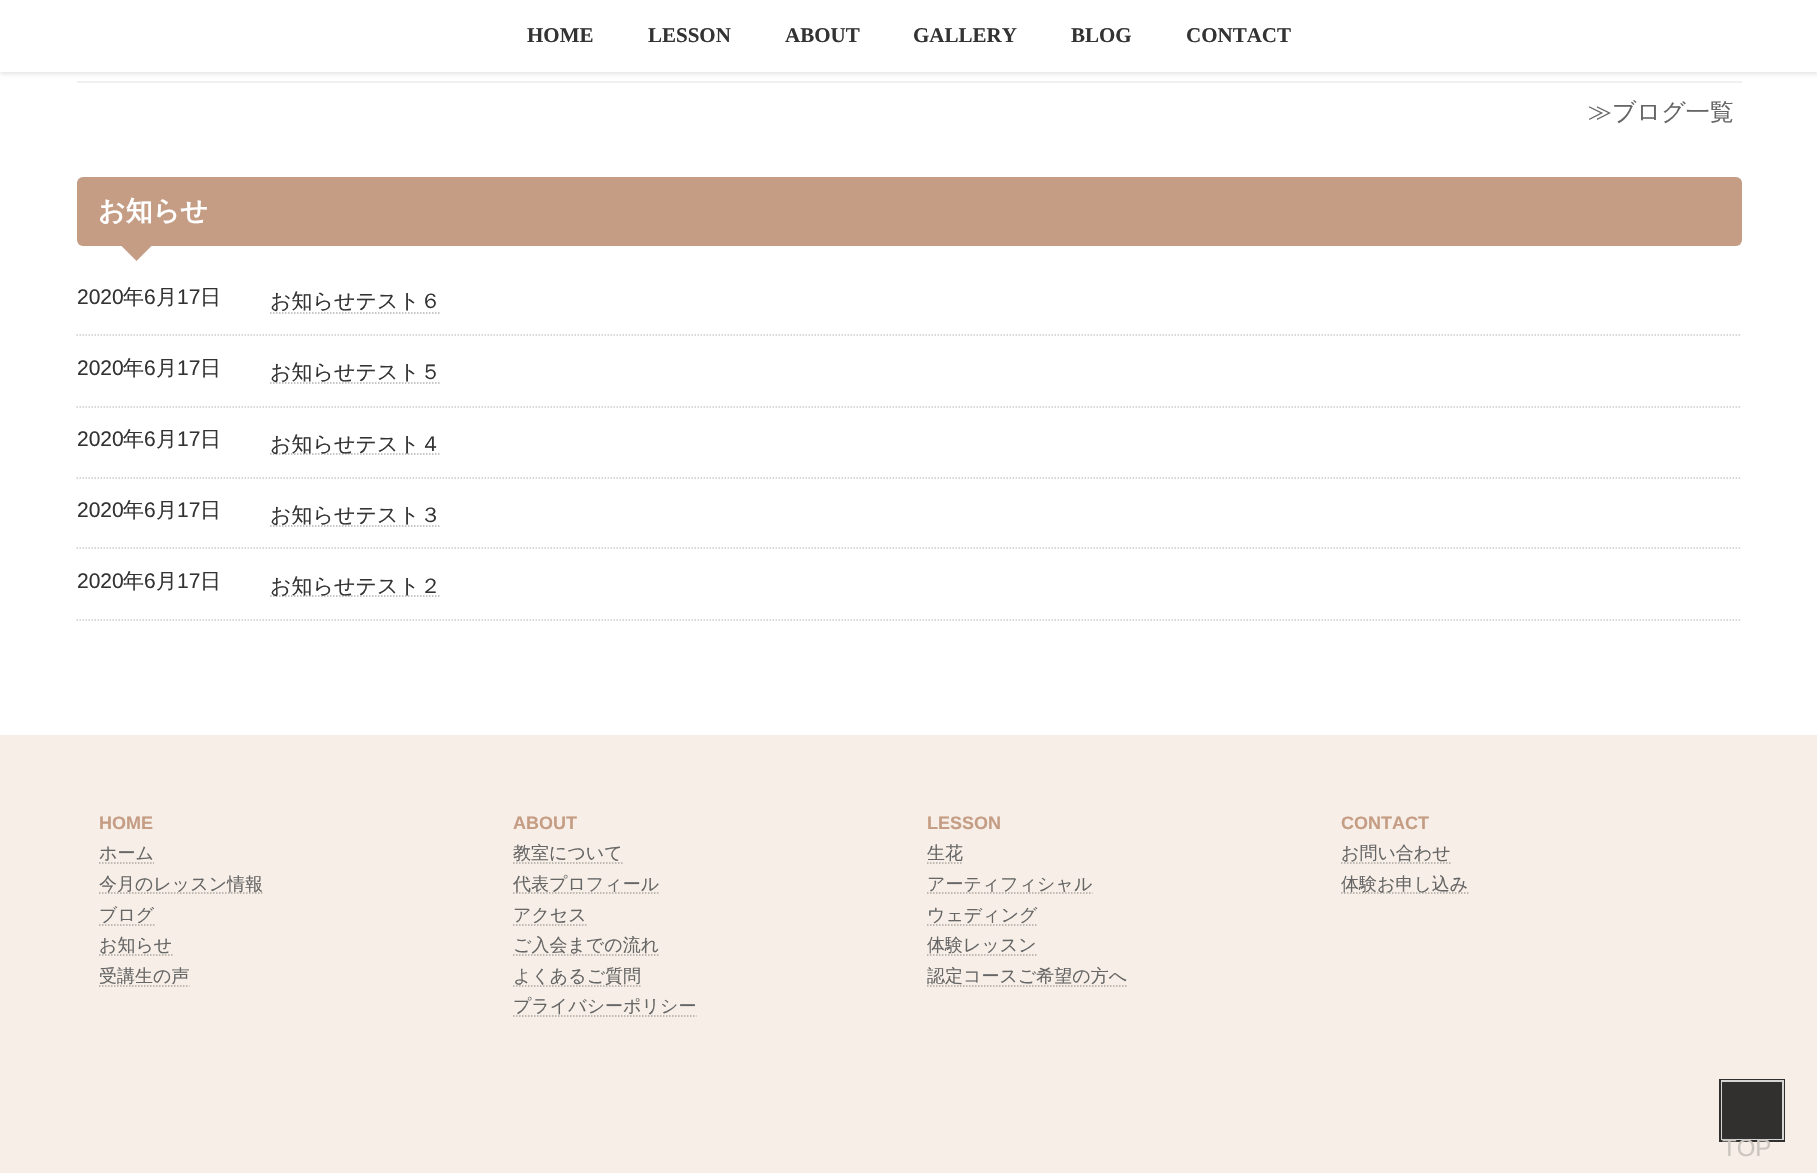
#include "include/core/SkBlurTypes.h"
#include "include/core/SkCanvas.h"
#include "include/core/SkData.h"
#include "include/core/SkFont.h"
#include "include/core/SkFontMgr.h"
#include "include/core/SkImage.h"
#include "include/core/SkMaskFilter.h"
#include "include/core/SkPaint.h"
#include "include/core/SkPathBuilder.h"
#include "include/core/SkTextBlob.h"
#include "include/effects/SkDashPathEffect.h"
#include "include/effects/SkGradientShader.h"
#include "include/utils/SkParsePath.h"

extern sk_sp<SkFontMgr> fontMgr;

void draw(SkCanvas* canvas) {
    SkPaint p;
    p.setAntiAlias(true);
    auto font = [&](const char* family, int weight, float size, bool italic = false) {
        SkFontStyle style(weight, SkFontStyle::kNormal_Width,
            italic ? SkFontStyle::kItalic_Slant : SkFontStyle::kUpright_Slant);
        SkFont result(fontMgr->matchFamilyStyle(family, style), size);
        result.setSubpixel(true);
        return result;
    };
    canvas->clear(0xFFFFFFFF);
    p.setColor(0x1A000000);
    p.setMaskFilter(SkMaskFilter::MakeBlur(kNormal_SkBlurStyle, 2));
    canvas->drawRect(SkRect::MakeLTRB(0, 2, 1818, 74), p);
    p.setMaskFilter(nullptr);
    p.setColor(0xFFFFFFFF);
    canvas->drawRect(SkRect::MakeLTRB(0, 0, 1817, 72), p);
    auto font1 = font("Liberation Serif", 700, 21);
    p.setColor(0xFF333333);
    {
        const struct { const char* s; float x, y; } items[] = {
            {"HOME", 527, 42},
            {"LESSON", 648, 42},
            {"ABOUT", 785, 42},
            {"GALLERY", 913, 42},
            {"BLOG", 1071, 42},
            {"CONTACT", 1186, 42},
        };
        for (auto [s, x, y] : items) {
            canvas->drawString(s, x, y, font1, p);
        }
    }
    p.setColor(0xFFF0F0F0);
    canvas->drawRect(SkRect::MakeLTRB(77, 81, 1742, 83), p);
    auto font2 = font("WenQuanYi Zen Hei", 500, 24);
    p.setColor(0xFF666666);
    canvas->drawString("≫ブログ一覧", 1588, 120, font2, p);
    p.setColor(0xFFC59D85);
    canvas->drawRoundRect(SkRect::MakeLTRB(77, 177, 1742, 246), 6, 6, p);
    auto font3 = font("WenQuanYi Zen Hei", 700, 27);
    p.setColor(0xFFFFFFFF);
    canvas->drawString("お知らせ", 98, 220, font3, p);
    p.setColor(0xFFC59D85);
    canvas->drawPath(SkPathBuilder().moveTo(121.5f, 246).lineTo(151.5f, 246).lineTo(136.5f, 261).close().detach(), p);
    p.setStyle(SkPaint::kStroke_Style);
    p.setStrokeWidth(1.5f);
    p.setColor(0xFFCCCCCC);
    p.setPathEffect(SkDashPathEffect::Make({{1.5f, 1.5f}}, 0));
    canvas->drawPath(SkPathBuilder().moveTo(76.5f, 335).lineTo(1741.5f, 335).detach(), p);
    p.setPathEffect(nullptr);
    auto font4 = font("Liberation Sans", 400, 21);
    p.setStyle(SkPaint::kFill_Style);
    p.setColor(0xFF333333);
    canvas->drawString("2020", 77, 304, font4, p);
    auto font5 = font("WenQuanYi Zen Hei", 500, 21);
    canvas->drawString("年", 123, 304, font5, p);
    canvas->drawString("6", 144, 304, font4, p);
    canvas->drawString("月", 156, 304, font5, p);
    canvas->drawString("17", 177, 304, font4, p);
    canvas->drawString("日", 200, 304, font5, p);
    canvas->drawString("お知らせテスト６", 270, 308, font5, p);
    p.setStyle(SkPaint::kStroke_Style);
    p.setColor(0xFFB3B3B3);
    p.setPathEffect(SkDashPathEffect::Make({{1.5f, 1.5f}}, 0));
    canvas->drawPath(SkPathBuilder().moveTo(270, 313).lineTo(441, 313).detach(), p);
    p.setPathEffect(nullptr);
    p.setColor(0xFFCCCCCC);
    p.setPathEffect(SkDashPathEffect::Make({{1.5f, 1.5f}}, 0));
    canvas->drawPath(SkPathBuilder().moveTo(76.5f, 407).lineTo(1741.5f, 407).detach(), p);
    p.setPathEffect(nullptr);
    p.setStyle(SkPaint::kFill_Style);
    p.setColor(0xFF333333);
    canvas->drawString("2020", 77, 375, font4, p);
    canvas->drawString("年", 123, 375, font5, p);
    canvas->drawString("6", 144, 375, font4, p);
    canvas->drawString("月", 156, 375, font5, p);
    canvas->drawString("17", 177, 375, font4, p);
    canvas->drawString("日", 200, 375, font5, p);
    p.setStyle(SkPaint::kStroke_Style);
    p.setColor(0xFFB3B3B3);
    p.setPathEffect(SkDashPathEffect::Make({{1.5f, 1.5f}}, 0));
    canvas->drawPath(SkPathBuilder().moveTo(270, 383).lineTo(441, 383).detach(), p);
    p.setPathEffect(nullptr);
    p.setStyle(SkPaint::kFill_Style);
    p.setColor(0xFF333333);
    canvas->drawString("お知らせテスト５", 270, 379, font5, p);
    p.setStyle(SkPaint::kStroke_Style);
    p.setColor(0xFFCCCCCC);
    p.setPathEffect(SkDashPathEffect::Make({{1.5f, 1.5f}}, 0));
    canvas->drawPath(SkPathBuilder().moveTo(76.5f, 478).lineTo(1741.5f, 478).detach(), p);
    p.setPathEffect(nullptr);
    p.setStyle(SkPaint::kFill_Style);
    p.setColor(0xFF333333);
    canvas->drawString("2020", 77, 446, font4, p);
    canvas->drawString("年", 123, 446, font5, p);
    canvas->drawString("6", 144, 446, font4, p);
    canvas->drawString("月", 156, 446, font5, p);
    canvas->drawString("17", 177, 446, font4, p);
    canvas->drawString("日", 200, 446, font5, p);
    p.setStyle(SkPaint::kStroke_Style);
    p.setColor(0xFFB3B3B3);
    p.setPathEffect(SkDashPathEffect::Make({{1.5f, 1.5f}}, 0));
    canvas->drawPath(SkPathBuilder().moveTo(270, 454).lineTo(441, 454).detach(), p);
    p.setPathEffect(nullptr);
    p.setStyle(SkPaint::kFill_Style);
    p.setColor(0xFF333333);
    canvas->drawString("お知らせテスト４", 270, 451, font5, p);
    p.setStyle(SkPaint::kStroke_Style);
    p.setColor(0xFFCCCCCC);
    p.setPathEffect(SkDashPathEffect::Make({{1.5f, 1.5f}}, 0));
    canvas->drawPath(SkPathBuilder().moveTo(76.5f, 548).lineTo(1741.5f, 548).detach(), p);
    p.setPathEffect(nullptr);
    p.setStyle(SkPaint::kFill_Style);
    p.setColor(0xFF333333);
    canvas->drawString("2020", 77, 517, font4, p);
    canvas->drawString("年", 123, 517, font5, p);
    canvas->drawString("6", 144, 517, font4, p);
    canvas->drawString("月", 156, 517, font5, p);
    canvas->drawString("17", 177, 517, font4, p);
    canvas->drawString("日", 200, 517, font5, p);
    p.setStyle(SkPaint::kStroke_Style);
    p.setColor(0xFFB3B3B3);
    p.setPathEffect(SkDashPathEffect::Make({{1.5f, 1.5f}}, 0));
    canvas->drawPath(SkPathBuilder().moveTo(270, 526).lineTo(441, 526).detach(), p);
    p.setPathEffect(nullptr);
    p.setStyle(SkPaint::kFill_Style);
    p.setColor(0xFF333333);
    canvas->drawString("お知らせテスト３", 270, 522, font5, p);
    p.setStyle(SkPaint::kStroke_Style);
    p.setColor(0xFFCCCCCC);
    p.setPathEffect(SkDashPathEffect::Make({{1.5f, 1.5f}}, 0));
    canvas->drawPath(SkPathBuilder().moveTo(76.5f, 620).lineTo(1741.5f, 620).detach(), p);
    p.setPathEffect(nullptr);
    p.setStyle(SkPaint::kFill_Style);
    p.setColor(0xFF333333);
    canvas->drawString("2020", 77, 588, font4, p);
    canvas->drawString("年", 123, 588, font5, p);
    canvas->drawString("6", 144, 588, font4, p);
    canvas->drawString("月", 156, 588, font5, p);
    canvas->drawString("17", 177, 588, font4, p);
    canvas->drawString("日", 200, 588, font5, p);
    p.setStyle(SkPaint::kStroke_Style);
    p.setColor(0xFFB3B3B3);
    p.setPathEffect(SkDashPathEffect::Make({{1.5f, 1.5f}}, 0));
    canvas->drawPath(SkPathBuilder().moveTo(270, 596).lineTo(441, 596).detach(), p);
    p.setPathEffect(nullptr);
    p.setStyle(SkPaint::kFill_Style);
    p.setColor(0xFF333333);
    canvas->drawString("お知らせテスト２", 270, 593, font5, p);
    p.setColor(0xFFF7EFE7);
    canvas->drawRect(SkRect::MakeLTRB(0, 735, 1817, 1173), p);
    auto font6 = font("Liberation Sans", 700, 18);
    p.setColor(0xFFC59D85);
    canvas->drawString("HOME", 99, 829, font6, p);
    auto font7 = font("WenQuanYi Zen Hei", 500, 18);
    p.setColor(0xFF666666);
    canvas->drawString("ホーム", 99, 859, font7, p);
    p.setStyle(SkPaint::kStroke_Style);
    p.setColor(0xFFADA7A2);
    p.setPathEffect(SkDashPathEffect::Make({{1.5f, 1.5f}}, 0));
    canvas->drawPath(SkPathBuilder().moveTo(99, 863).lineTo(154, 863).detach(), p);
    p.setPathEffect(nullptr);
    p.setPathEffect(SkDashPathEffect::Make({{1.5f, 1.5f}}, 0));
    canvas->drawPath(SkPathBuilder().moveTo(99, 893).lineTo(263, 893).detach(), p);
    p.setPathEffect(nullptr);
    p.setStyle(SkPaint::kFill_Style);
    p.setColor(0xFF666666);
    canvas->drawString("今月のレッスン情報", 99, 890, font7, p);
    canvas->drawString("ブログ", 99, 921, font7, p);
    p.setStyle(SkPaint::kStroke_Style);
    p.setColor(0xFFADA7A2);
    p.setPathEffect(SkDashPathEffect::Make({{1.5f, 1.5f}}, 0));
    canvas->drawPath(SkPathBuilder().moveTo(99, 925).lineTo(154.5f, 925).detach(), p);
    p.setPathEffect(nullptr);
    p.setStyle(SkPaint::kFill_Style);
    p.setColor(0xFF666666);
    canvas->drawString("お知らせ", 99, 951, font7, p);
    p.setStyle(SkPaint::kStroke_Style);
    p.setColor(0xFFADA7A2);
    p.setPathEffect(SkDashPathEffect::Make({{1.5f, 1.5f}}, 0));
    canvas->drawPath(SkPathBuilder().moveTo(99, 955).lineTo(172.5f, 955).detach(), p);
    p.setPathEffect(nullptr);
    p.setStyle(SkPaint::kFill_Style);
    p.setColor(0xFF666666);
    canvas->drawString("受講生の声", 99, 982, font7, p);
    p.setStyle(SkPaint::kStroke_Style);
    p.setColor(0xFFADA7A2);
    p.setPathEffect(SkDashPathEffect::Make({{1.5f, 1.5f}}, 0));
    canvas->drawPath(SkPathBuilder().moveTo(99, 986).lineTo(189.5f, 986).detach(), p);
    p.setPathEffect(nullptr);
    p.setStyle(SkPaint::kFill_Style);
    p.setColor(0xFFC59D85);
    canvas->drawString("ABOUT", 513, 829, font6, p);
    p.setColor(0xFF666666);
    canvas->drawString("教室について", 513, 859, font7, p);
    p.setStyle(SkPaint::kStroke_Style);
    p.setColor(0xFFADA7A2);
    p.setPathEffect(SkDashPathEffect::Make({{1.5f, 1.5f}}, 0));
    canvas->drawPath(SkPathBuilder().moveTo(513, 863).lineTo(622.5f, 863).detach(), p);
    p.setPathEffect(nullptr);
    p.setPathEffect(SkDashPathEffect::Make({{1.5f, 1.5f}}, 0));
    canvas->drawPath(SkPathBuilder().moveTo(513, 893).lineTo(659, 893).detach(), p);
    p.setPathEffect(nullptr);
    p.setStyle(SkPaint::kFill_Style);
    p.setColor(0xFF666666);
    canvas->drawString("代表プロフィール", 513, 890, font7, p);
    canvas->drawString("アクセス", 513, 921, font7, p);
    p.setStyle(SkPaint::kStroke_Style);
    p.setColor(0xFFADA7A2);
    p.setPathEffect(SkDashPathEffect::Make({{1.5f, 1.5f}}, 0));
    canvas->drawPath(SkPathBuilder().moveTo(513, 925).lineTo(586.5f, 925).detach(), p);
    p.setPathEffect(nullptr);
    p.setStyle(SkPaint::kFill_Style);
    p.setColor(0xFF666666);
    canvas->drawString("ご入会までの流れ", 513, 951, font7, p);
    p.setStyle(SkPaint::kStroke_Style);
    p.setColor(0xFFADA7A2);
    p.setPathEffect(SkDashPathEffect::Make({{1.5f, 1.5f}}, 0));
    canvas->drawPath(SkPathBuilder().moveTo(513, 955).lineTo(659, 955).detach(), p);
    p.setPathEffect(nullptr);
    p.setPathEffect(SkDashPathEffect::Make({{1.5f, 1.5f}}, 0));
    canvas->drawPath(SkPathBuilder().moveTo(513, 986).lineTo(641, 986).detach(), p);
    p.setPathEffect(nullptr);
    p.setStyle(SkPaint::kFill_Style);
    p.setColor(0xFF666666);
    canvas->drawString("よくあるご質問", 513, 982, font7, p);
    canvas->drawString("プライバシーポリシー", 513, 1012, font7, p);
    p.setStyle(SkPaint::kStroke_Style);
    p.setColor(0xFFADA7A2);
    p.setPathEffect(SkDashPathEffect::Make({{1.5f, 1.5f}}, 0));
    canvas->drawPath(SkPathBuilder().moveTo(513, 1016).lineTo(696.5f, 1016).detach(), p);
    p.setPathEffect(nullptr);
    p.setStyle(SkPaint::kFill_Style);
    p.setColor(0xFFC59D85);
    canvas->drawString("LESSON", 927, 829, font6, p);
    p.setColor(0xFF666666);
    canvas->drawString("生花", 927, 859, font7, p);
    p.setStyle(SkPaint::kStroke_Style);
    p.setColor(0xFFADA7A2);
    p.setPathEffect(SkDashPathEffect::Make({{1.5f, 1.5f}}, 0));
    canvas->drawPath(SkPathBuilder().moveTo(927, 863).lineTo(963, 863).detach(), p);
    p.setPathEffect(nullptr);
    p.setPathEffect(SkDashPathEffect::Make({{1.5f, 1.5f}}, 0));
    canvas->drawPath(SkPathBuilder().moveTo(927, 893).lineTo(1092.5f, 893).detach(), p);
    p.setPathEffect(nullptr);
    p.setStyle(SkPaint::kFill_Style);
    p.setColor(0xFF666666);
    canvas->drawString("アーティフィシャル", 927, 890, font7, p);
    canvas->drawString("ウェディング", 927, 921, font7, p);
    p.setStyle(SkPaint::kStroke_Style);
    p.setColor(0xFFADA7A2);
    p.setPathEffect(SkDashPathEffect::Make({{1.5f, 1.5f}}, 0));
    canvas->drawPath(SkPathBuilder().moveTo(927, 925).lineTo(1037.5f, 925).detach(), p);
    p.setPathEffect(nullptr);
    p.setStyle(SkPaint::kFill_Style);
    p.setColor(0xFF666666);
    canvas->drawString("体験レッスン", 927, 951, font7, p);
    p.setStyle(SkPaint::kStroke_Style);
    p.setColor(0xFFADA7A2);
    p.setPathEffect(SkDashPathEffect::Make({{1.5f, 1.5f}}, 0));
    canvas->drawPath(SkPathBuilder().moveTo(927, 955).lineTo(1036.5f, 955).detach(), p);
    p.setPathEffect(nullptr);
    p.setStyle(SkPaint::kFill_Style);
    p.setColor(0xFF666666);
    canvas->drawString("認定コースご希望の方へ", 927, 982, font7, p);
    p.setStyle(SkPaint::kStroke_Style);
    p.setColor(0xFFADA7A2);
    p.setPathEffect(SkDashPathEffect::Make({{1.5f, 1.5f}}, 0));
    canvas->drawPath(SkPathBuilder().moveTo(927, 986).lineTo(1127, 986).detach(), p);
    p.setPathEffect(nullptr);
    p.setStyle(SkPaint::kFill_Style);
    p.setColor(0xFFC59D85);
    canvas->drawString("CONTACT", 1341, 829, font6, p);
    p.setColor(0xFF666666);
    canvas->drawString("お問い合わせ", 1341, 859, font7, p);
    p.setStyle(SkPaint::kStroke_Style);
    p.setColor(0xFFADA7A2);
    p.setPathEffect(SkDashPathEffect::Make({{1.5f, 1.5f}}, 0));
    canvas->drawPath(SkPathBuilder().moveTo(1341, 863).lineTo(1450.5f, 863).detach(), p);
    p.setPathEffect(nullptr);
    p.setPathEffect(SkDashPathEffect::Make({{1.5f, 1.5f}}, 0));
    canvas->drawPath(SkPathBuilder().moveTo(1341, 893).lineTo(1468.5f, 893).detach(), p);
    p.setPathEffect(nullptr);
    p.setStyle(SkPaint::kFill_Style);
    p.setColor(0xFF666666);
    canvas->drawString("体験お申し込み", 1341, 890, font7, p);
    p.setStyle(SkPaint::kStroke_Style);
    p.setStrokeWidth(3);
    p.setColor(0xFF31302E);
    canvas->drawRect(SkRect::MakeLTRB(1720.5f, 1080.5f, 1783.5f, 1140.5f), p);
    p.setStrokeWidth(2);
    p.setColor(0xCCFFFFFF);
    canvas->drawRect(SkRect::MakeLTRB(1722, 1081, 1783, 1139), p);
    p.setStyle(SkPaint::kFill_Style);
    p.setColor(0xCC000000);
    canvas->drawRect(SkRect::MakeLTRB(1722, 1082, 1782, 1139), p);
    auto font8 = font("Liberation Sans", 400, 24);
    p.setColor(0xFFCBC5BF);
    canvas->drawString("TOP", 1722, 1156, font8, p);
}
